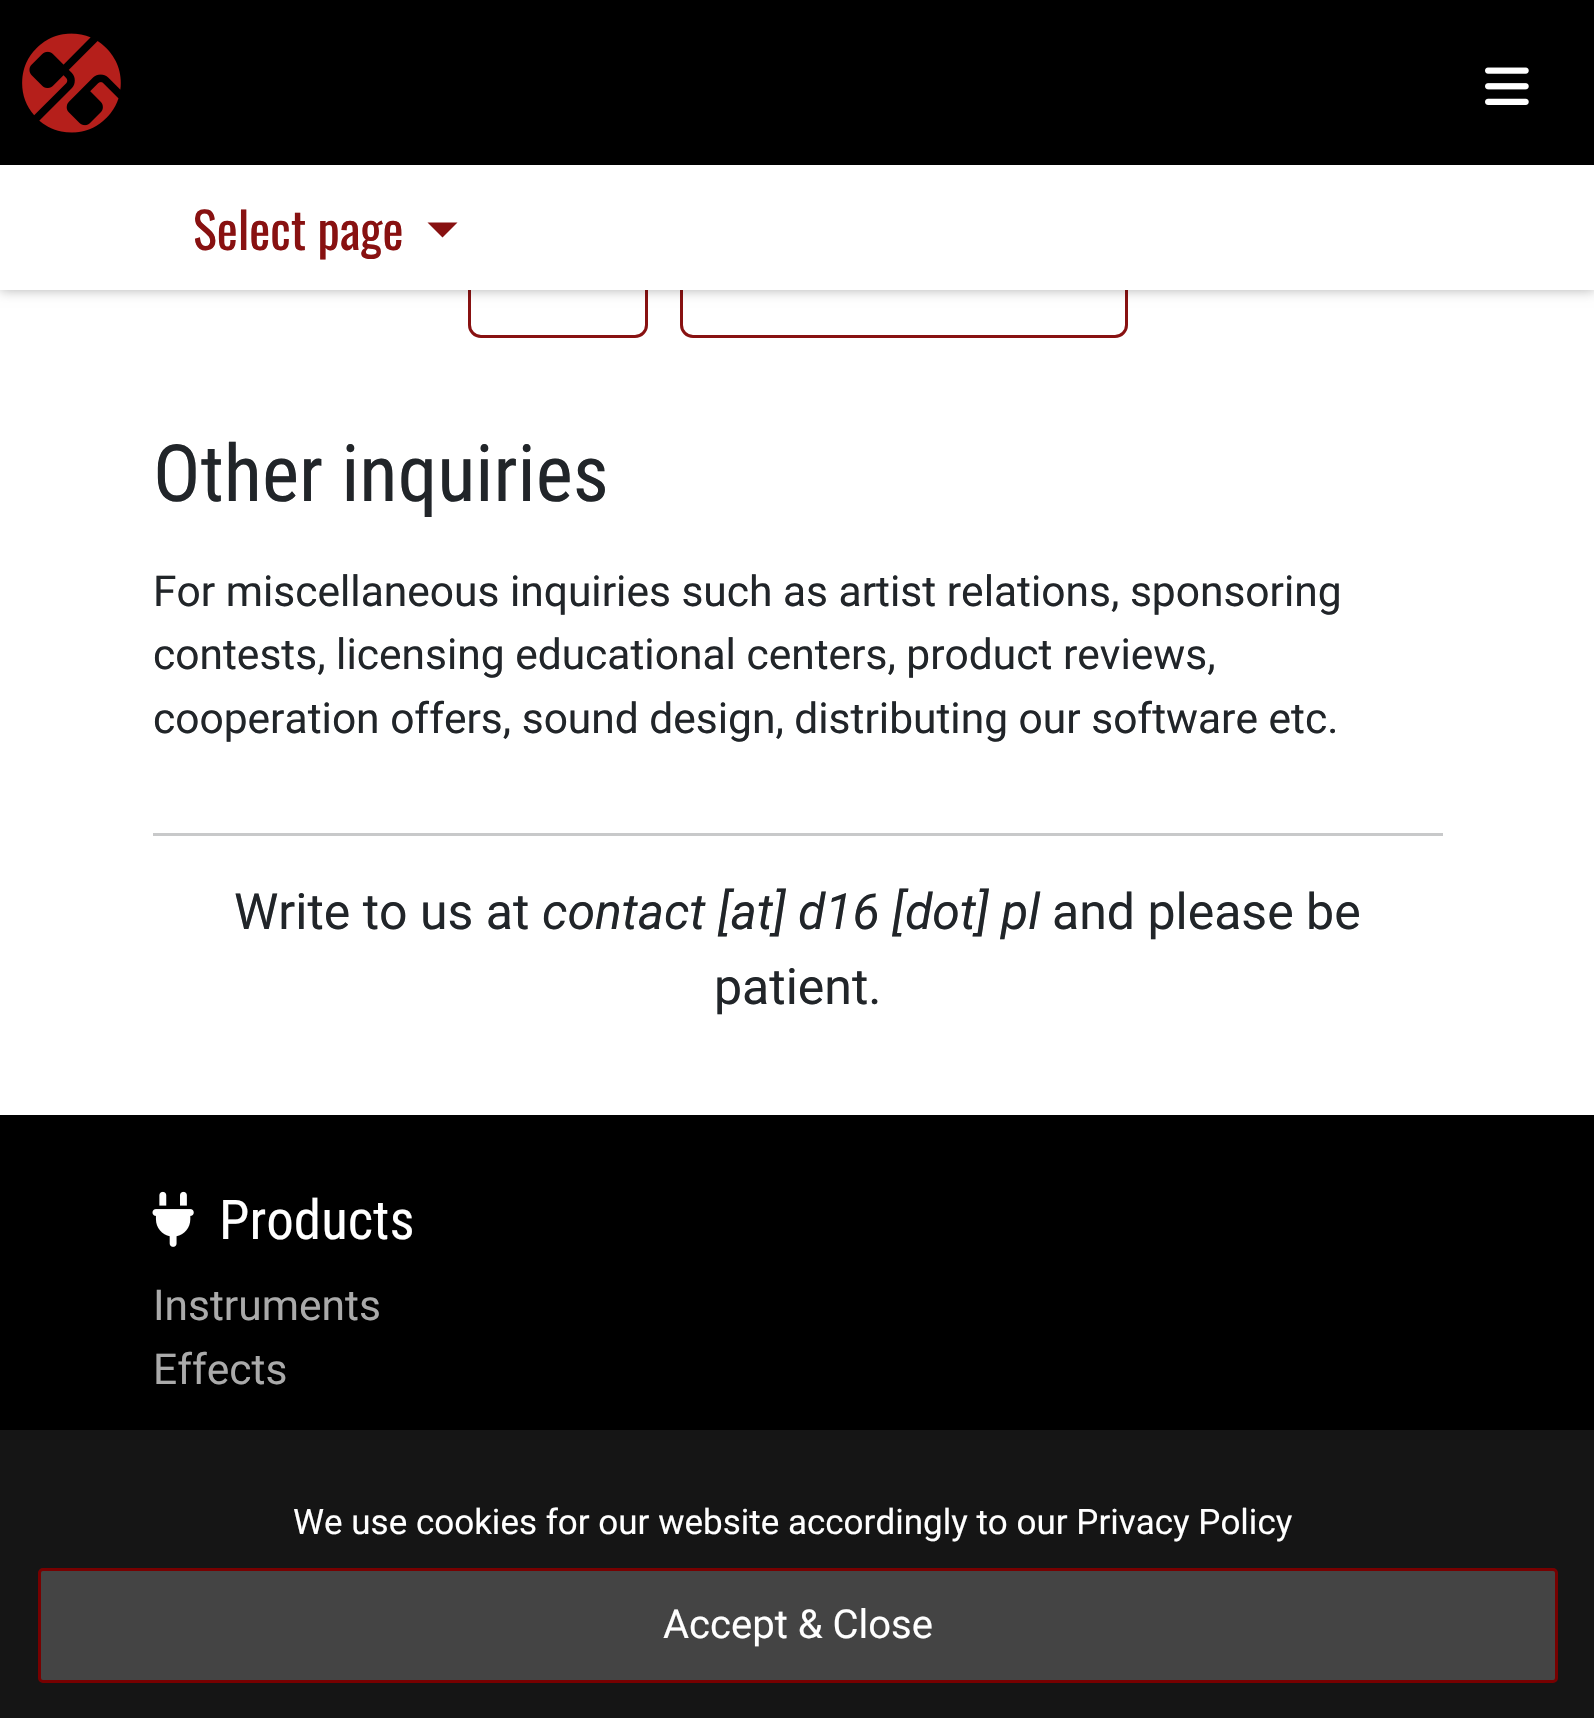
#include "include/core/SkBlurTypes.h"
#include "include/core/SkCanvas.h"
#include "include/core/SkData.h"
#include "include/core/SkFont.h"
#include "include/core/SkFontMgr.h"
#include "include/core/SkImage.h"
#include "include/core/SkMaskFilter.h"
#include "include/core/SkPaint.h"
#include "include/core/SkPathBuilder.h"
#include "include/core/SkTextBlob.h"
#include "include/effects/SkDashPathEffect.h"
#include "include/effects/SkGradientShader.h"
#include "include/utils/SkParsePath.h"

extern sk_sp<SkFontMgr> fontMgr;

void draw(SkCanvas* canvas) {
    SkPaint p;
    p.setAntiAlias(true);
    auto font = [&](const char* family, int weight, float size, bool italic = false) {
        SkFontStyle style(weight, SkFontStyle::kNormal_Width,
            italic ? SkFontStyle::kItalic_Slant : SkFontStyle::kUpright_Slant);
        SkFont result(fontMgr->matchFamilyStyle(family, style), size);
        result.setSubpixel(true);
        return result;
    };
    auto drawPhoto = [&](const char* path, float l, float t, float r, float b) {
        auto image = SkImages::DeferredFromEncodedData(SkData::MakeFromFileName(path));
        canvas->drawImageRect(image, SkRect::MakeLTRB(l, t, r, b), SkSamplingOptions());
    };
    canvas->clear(0xFF000000);
    p.setColor(0xFFFFFFFF);
    canvas->drawRect(SkRect::MakeLTRB(0, 290, 1594, 1115), p);
    drawPhoto("media/1.png", 22, 33, 121, 133);
    drawPhoto("media/2.png", 1485, 67, 1529, 105);
    p.setStyle(SkPaint::kStroke_Style);
    p.setStrokeWidth(3);
    p.setColor(0xFF881111);
    canvas->drawRoundRect(SkRect::MakeLTRB(469.5f, 219.5f, 646.5f, 336.5f), 11.5f, 11.5f, p);
    canvas->drawRoundRect(SkRect::MakeLTRB(681.5f, 219.5f, 1126.5f, 336.5f), 11.5f, 11.5f, p);
    p.setStyle(SkPaint::kFill_Style);
    p.setColor(0x4D000000);
    p.setMaskFilter(SkMaskFilter::MakeBlur(kNormal_SkBlurStyle, 6));
    canvas->drawRect(SkRect::MakeLTRB(0, 165, 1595, 290), p);
    p.setMaskFilter(nullptr);
    p.setColor(0xFFFFFFFF);
    canvas->drawRect(SkRect::MakeLTRB(0, 165, 1594, 290), p);
    auto font1 = font("Oswald", 400, 50);
    p.setColor(0xFF881111);
    canvas->drawString("Select page", 193, 250, font1, p);
    canvas->drawPath(SkPathBuilder().moveTo(427.5f, 222.5f).lineTo(457.5f, 222.5f).lineTo(442.5f, 237.5f).close().detach(), p);
    auto font2 = font("Roboto Condensed", 400, 79);
    p.setColor(0xFF212529);
    canvas->drawString("Other inquiries", 153, 501, font2, p);
    auto font3 = font("Roboto", 400, 42.5f);
    {
        const struct { const char* s; float x, y; } items[] = {
            {"For miscellaneous inquiries such as artist relations, sponsoring", 153, 606},
            {"contests, licensing educational centers, product reviews,", 153, 669},
            {"cooperation offers, sound design, distributing our software etc.", 153, 733},
        };
        for (auto [s, x, y] : items) {
            canvas->drawString(s, x, y, font3, p);
        }
    }
    p.setColor(0xFFC8C9CA);
    canvas->drawRect(SkRect::MakeLTRB(153, 833, 1443, 836), p);
    auto font4 = font("Roboto", 400, 50);
    p.setColor(0xFF212529);
    canvas->drawString("Write to us at", 234, 929, font4, p);
    auto font5 = font("Roboto", 400, 50, true);
    canvas->drawString("contact [at] d16 [dot] pl", 542, 929, font5, p);
    canvas->drawString("and please be", 1052, 929, font4, p);
    canvas->drawString("patient.", 714, 1004, font4, p);
    drawPhoto("media/3.png", 152, 1191, 194, 1247);
    auto font6 = font("Roboto Condensed", 400, 55);
    p.setColor(0xFFFFFFFF);
    canvas->drawString("Products", 219, 1239, font6, p);
    p.setColor(0xFFAAAAAA);
    canvas->drawString("Instruments", 153, 1320, font3, p);
    canvas->drawString("Effects", 153, 1384, font3, p);
    p.setColor(0xFF151515);
    canvas->drawRect(SkRect::MakeLTRB(0, 1430, 1594, 1718), p);
    auto font7 = font("Roboto", 400, 35);
    p.setColor(0xFFFFFFFF);
    canvas->drawString("We use cookies for our website accordingly to our Privacy Policy", 293, 1534, font7, p);
    p.setColor(0xFF444444);
    canvas->drawRoundRect(SkRect::MakeLTRB(39.5f, 1569.5f, 1556.5f, 1681.5f), 3.5f, 3.5f, p);
    p.setStyle(SkPaint::kStroke_Style);
    p.setColor(0xFF770000);
    canvas->drawRoundRect(SkRect::MakeLTRB(39.5f, 1569.5f, 1556.5f, 1681.5f), 3.5f, 3.5f, p);
    auto font8 = font("Roboto", 400, 40);
    p.setStyle(SkPaint::kFill_Style);
    p.setColor(0xFFFFFFFF);
    canvas->drawString("Accept & Close", 663, 1638, font8, p);
}
